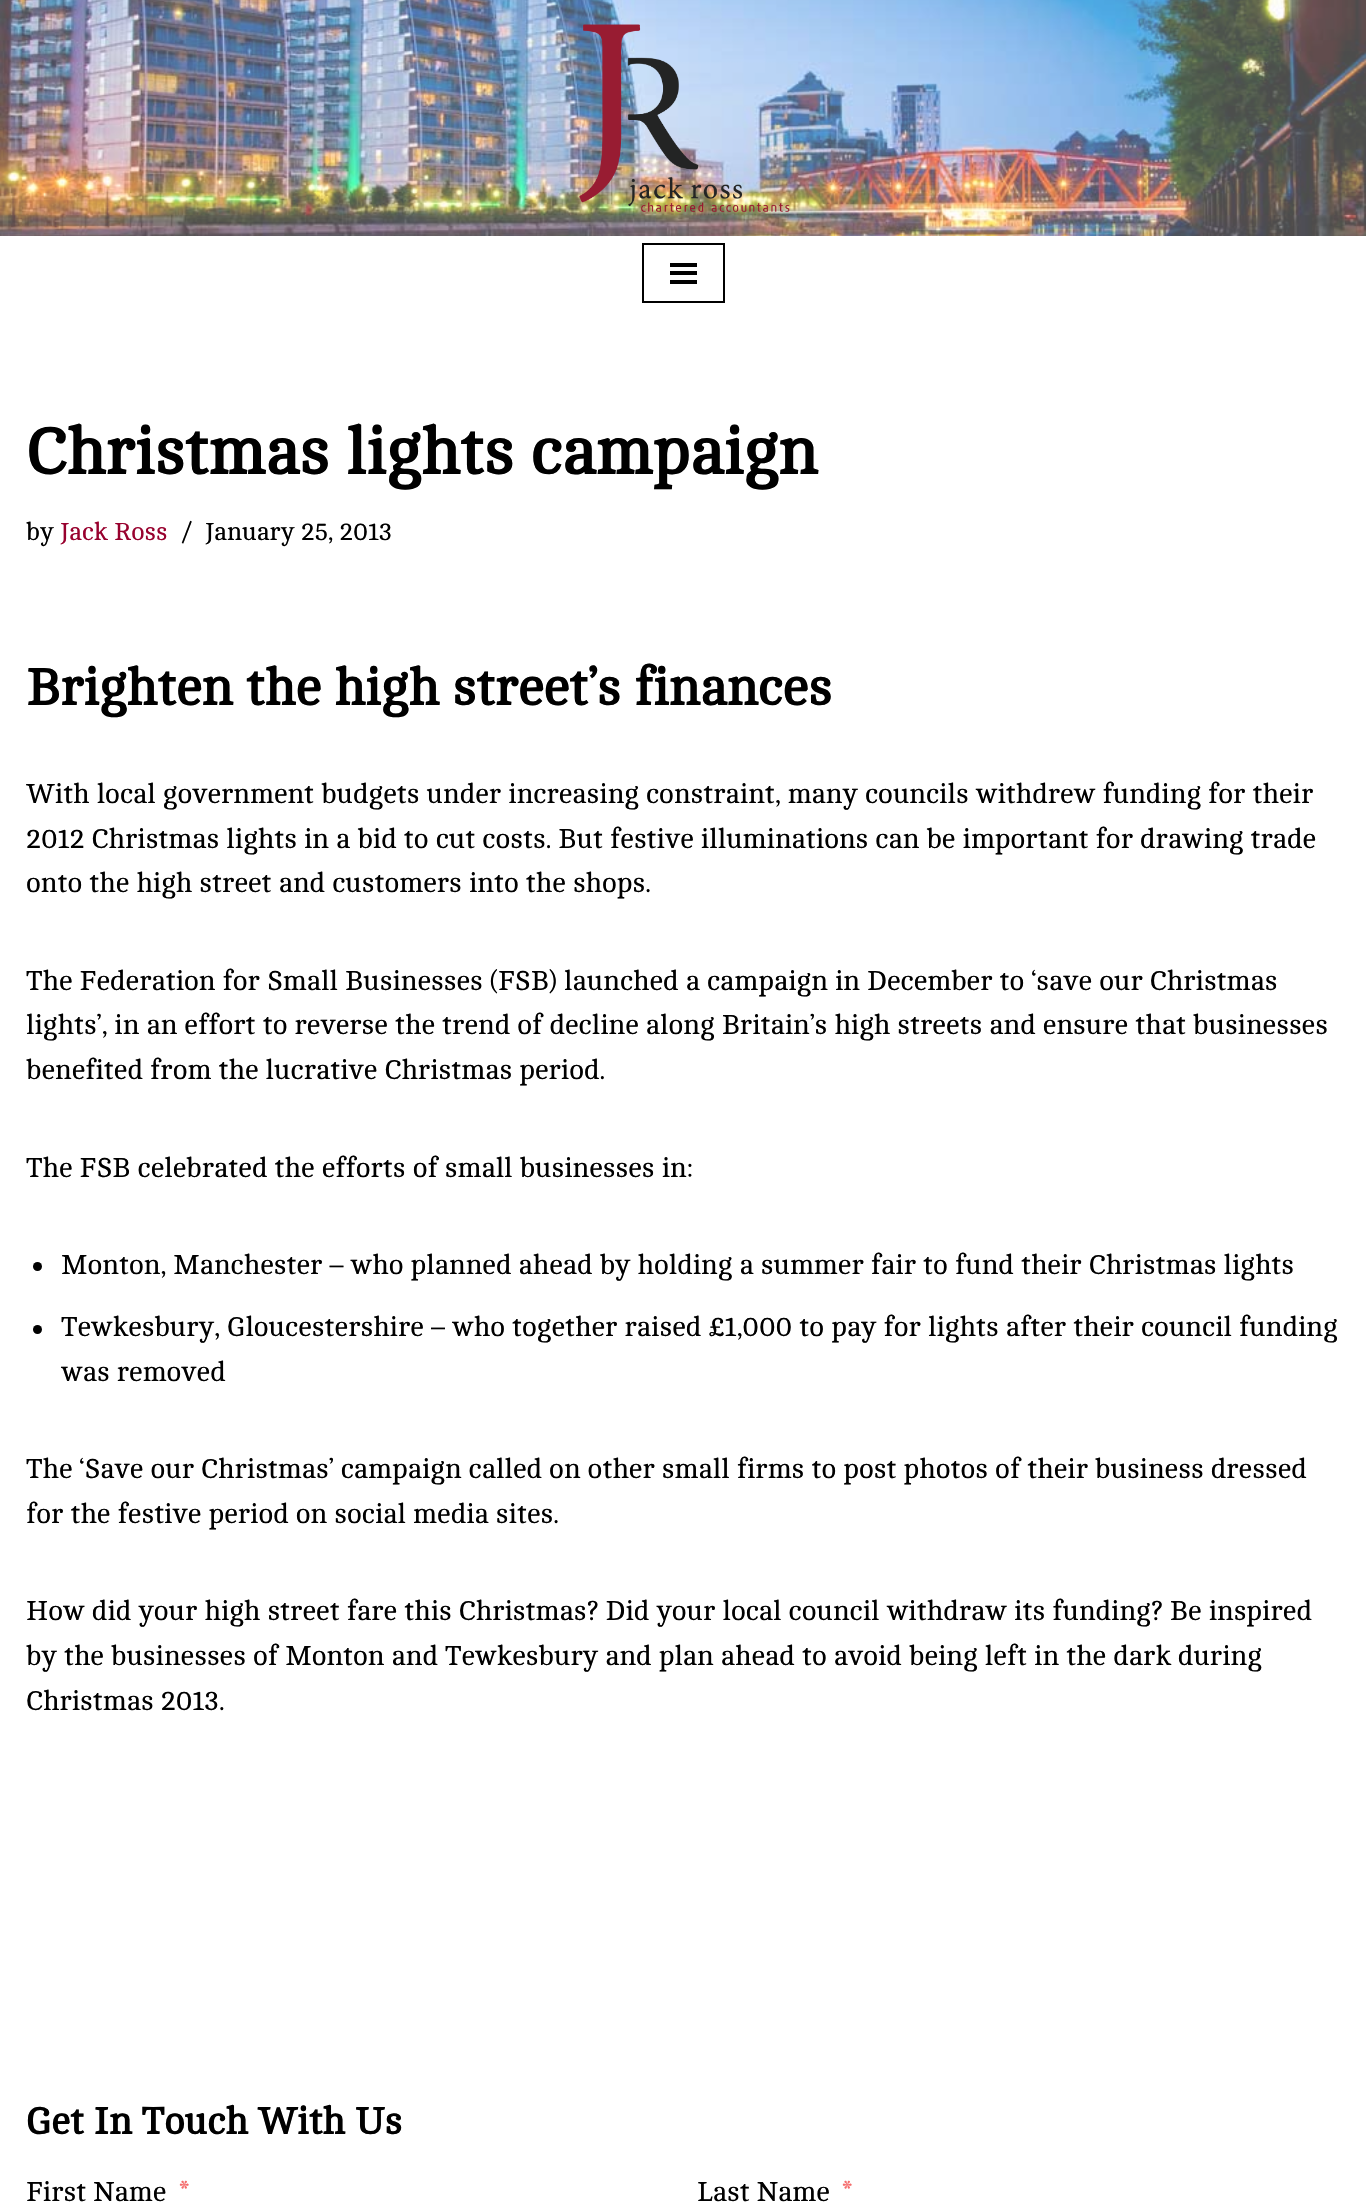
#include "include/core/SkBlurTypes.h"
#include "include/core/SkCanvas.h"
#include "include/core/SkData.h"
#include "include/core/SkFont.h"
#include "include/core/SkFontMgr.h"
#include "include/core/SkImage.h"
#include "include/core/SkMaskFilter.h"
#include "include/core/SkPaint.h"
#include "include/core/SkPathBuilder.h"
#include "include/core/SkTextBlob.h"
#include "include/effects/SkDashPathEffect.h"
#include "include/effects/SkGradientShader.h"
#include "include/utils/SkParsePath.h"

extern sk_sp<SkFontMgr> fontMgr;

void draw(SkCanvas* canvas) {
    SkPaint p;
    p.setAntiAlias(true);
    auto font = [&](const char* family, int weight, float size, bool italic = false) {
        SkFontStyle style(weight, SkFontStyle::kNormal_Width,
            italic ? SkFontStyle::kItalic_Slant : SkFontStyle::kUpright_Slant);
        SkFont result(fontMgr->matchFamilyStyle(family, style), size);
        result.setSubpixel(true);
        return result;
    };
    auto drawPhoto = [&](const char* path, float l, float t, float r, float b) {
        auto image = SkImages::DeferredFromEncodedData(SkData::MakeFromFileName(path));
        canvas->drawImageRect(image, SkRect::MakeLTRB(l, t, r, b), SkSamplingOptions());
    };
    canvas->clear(0xFFFFFFFF);
    drawPhoto("media/1.png", 0, 0, 1366, 236);
    drawPhoto("media/2.png", 579, 24, 790, 212);
    p.setStyle(SkPaint::kStroke_Style);
    p.setStrokeWidth(2);
    p.setColor(0xFF000000);
    canvas->drawRect(SkRect::MakeLTRB(643, 244, 724, 302), p);
    p.setStyle(SkPaint::kFill_Style);
    {
        const struct { float l, t, r, b; SkColor color; } items[] = {
            {670, 263, 697, 267, 0xFF000000},
            {670, 271, 697, 275, 0xFF000000},
            {670, 280, 697, 284, 0xFF000000},
        };
        for (auto [l, t, r, b, color] : items) {
            p.setColor(color);
            canvas->drawRect(SkRect::MakeLTRB(l, t, r, b), p);
        }
    }
    auto font1 = font("Cambo", 700, 66.5f);
    canvas->drawString("Christmas lights campaign", 26, 474, font1, p);
    auto font2 = font("Cambo", 400, 25.25f);
    canvas->drawString("by", 26, 540, font2, p);
    p.setColor(0xFF98012E);
    canvas->drawString("Jack Ross", 60, 540, font2, p);
    p.setColor(0xFF000000);
    canvas->drawString("/", 182, 540, font2, p);
    canvas->drawString("January 25, 2013", 205, 540, font2, p);
    auto font3 = font("Cambo", 700, 52.5f);
    canvas->drawString("Brighten the high street’s finances", 26, 705, font3, p);
    auto font4 = font("Cambo", 400, 28);
    {
        const struct { const char* s; float x, y; } items[] = {
            {"With local government budgets under increasing constraint, many councils withdrew funding for their", 26, 803},
            {"2012 Christmas lights in a bid to cut costs. But festive illuminations can be important for drawing trade", 26, 848},
            {"onto the high street and customers into the shops.", 26, 892},
            {"The Federation for Small Businesses (FSB) launched a campaign in December to ‘save our Christmas", 26, 990},
            {"lights’, in an effort to reverse the trend of decline along Britain’s high streets and ensure that businesses", 26, 1034},
            {"benefited from the lucrative Christmas period.", 26, 1079},
            {"The FSB celebrated the efforts of small businesses in:", 26, 1177},
        };
        for (auto [s, x, y] : items) {
            canvas->drawString(s, x, y, font4, p);
        }
    }
    canvas->drawCircle(37.5f, 1266.5f, 4.5f, p);
    canvas->drawString("Monton, Manchester – who planned ahead by holding a summer fair to fund their Christmas lights", 61, 1274, font4, p);
    canvas->drawCircle(37.5f, 1329.5f, 4.5f, p);
    {
        const struct { const char* s; float x, y; } items[] = {
            {"Tewkesbury, Gloucestershire – who together raised £1,000 to pay for lights after their council funding", 61, 1336},
            {"was removed", 61, 1381},
            {"The ‘Save our Christmas’ campaign called on other small firms to post photos of their business dressed", 26, 1478},
            {"for the festive period on social media sites.", 26, 1523},
            {"How did your high street fare this Christmas? Did your local council withdraw its funding? Be inspired", 26, 1620},
            {"by the businesses of Monton and Tewkesbury and plan ahead to avoid being left in the dark during", 26, 1665},
            {"Christmas 2013.", 26, 1710},
        };
        for (auto [s, x, y] : items) {
            canvas->drawString(s, x, y, font4, p);
        }
    }
    auto font5 = font("Cambo", 700, 38.5f);
    canvas->drawString("Get In Touch With Us", 26, 2134, font5, p);
    canvas->drawString("First Name", 26, 2201, font4, p);
    p.setColor(0xFFF56C6C);
    canvas->drawString("*", 179, 2201, font4, p);
    p.setColor(0xFF000000);
    canvas->drawString("Last Name", 697, 2201, font4, p);
    p.setColor(0xFFF56C6C);
    canvas->drawString("*", 842, 2201, font4, p);
}
